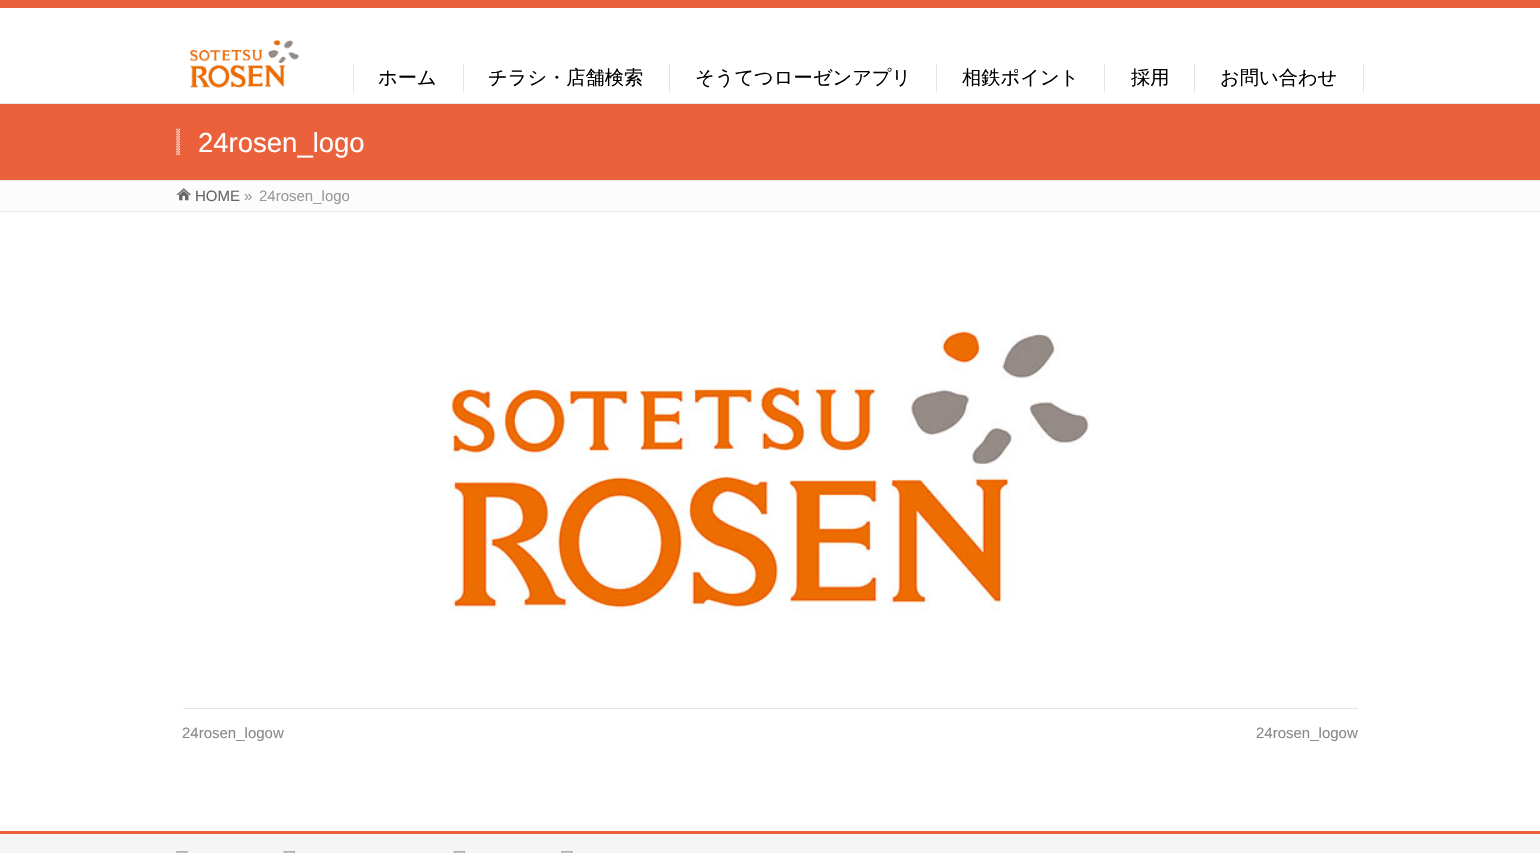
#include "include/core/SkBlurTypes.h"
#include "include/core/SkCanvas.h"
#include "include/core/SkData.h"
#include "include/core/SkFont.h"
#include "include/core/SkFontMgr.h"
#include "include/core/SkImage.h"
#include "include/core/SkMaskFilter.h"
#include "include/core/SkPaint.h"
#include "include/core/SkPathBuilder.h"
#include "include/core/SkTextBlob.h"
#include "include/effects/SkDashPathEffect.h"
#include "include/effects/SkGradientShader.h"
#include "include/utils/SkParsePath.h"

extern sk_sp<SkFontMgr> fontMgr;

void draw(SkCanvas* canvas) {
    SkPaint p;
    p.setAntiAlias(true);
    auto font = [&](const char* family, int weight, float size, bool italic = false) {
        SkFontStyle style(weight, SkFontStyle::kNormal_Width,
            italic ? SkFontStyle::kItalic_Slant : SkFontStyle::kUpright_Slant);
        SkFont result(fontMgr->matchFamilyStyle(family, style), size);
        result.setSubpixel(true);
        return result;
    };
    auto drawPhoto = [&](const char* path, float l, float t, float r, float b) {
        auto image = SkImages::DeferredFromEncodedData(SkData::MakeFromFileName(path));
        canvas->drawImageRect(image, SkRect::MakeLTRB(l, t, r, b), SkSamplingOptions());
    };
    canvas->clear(0xFFFFFFFF);
    p.setColor(0xFFEB613B);
    canvas->drawRect(SkRect::MakeLTRB(0, 0, 1540, 8), p);
    drawPhoto("media/1.png", 190, 40, 299, 88);
    p.setColor(0xFFE5E5E5);
    canvas->drawRect(SkRect::MakeLTRB(463, 64, 464, 93), p);
    canvas->drawRect(SkRect::MakeLTRB(353, 64, 354, 93), p);
    auto font1 = font("WenQuanYi Zen Hei", 500, 19.25f);
    p.setColor(0xFF000000);
    canvas->drawString("ホーム", 378, 84, font1, p);
    p.setColor(0xFFE5E5E5);
    canvas->drawRect(SkRect::MakeLTRB(669, 64, 670, 93), p);
    p.setColor(0xFF000000);
    canvas->drawString("チラシ・店舗検索", 488, 84, font1, p);
    p.setColor(0xFFE5E5E5);
    canvas->drawRect(SkRect::MakeLTRB(936, 64, 937, 93), p);
    p.setColor(0xFF000000);
    canvas->drawString("そうてつローゼンアプリ", 695, 84, font1, p);
    p.setColor(0xFFE5E5E5);
    canvas->drawRect(SkRect::MakeLTRB(1104, 64, 1105, 93), p);
    p.setColor(0xFF000000);
    canvas->drawString("相鉄ポイント", 962, 84, font1, p);
    p.setColor(0xFFE5E5E5);
    canvas->drawRect(SkRect::MakeLTRB(1194, 64, 1195, 93), p);
    p.setColor(0xFF000000);
    canvas->drawString("採用", 1131, 84, font1, p);
    p.setColor(0xFFE5E5E5);
    canvas->drawRect(SkRect::MakeLTRB(1363, 64, 1364, 93), p);
    p.setColor(0xFF000000);
    canvas->drawString("お問い合わせ", 1220, 84, font1, p);
    {
        const struct { float l, t, r, b; SkColor color; } items[] = {
            {0, 104, 1540, 180, 0xFFEB613B},
            {0, 103, 1540, 104, 0xFFE9E9E9},
            {0, 180, 1540, 181, 0xFFE9E9E9},
        };
        for (auto [l, t, r, b, color] : items) {
            p.setColor(color);
            canvas->drawRect(SkRect::MakeLTRB(l, t, r, b), p);
        }
    }
    drawPhoto("media/2.png", 176, 128, 180, 155);
    auto font2 = font("Liberation Sans", 400, 27.5f);
    p.setColor(0xFFFFFFFF);
    canvas->drawString("24rosen_logo", 198, 152, font2, p);
    p.setColor(0xFFFCFCFC);
    canvas->drawRect(SkRect::MakeLTRB(0, 181, 1540, 211), p);
    drawPhoto("media/3.png", 176, 188, 191, 201);
    auto font3 = font("Liberation Sans", 400, 15);
    p.setColor(0xFF666666);
    canvas->drawString("HOME", 195, 201, font3, p);
    p.setColor(0xFF999999);
    canvas->drawString("»", 244, 201, font3, p);
    canvas->drawString("24rosen_logo", 259, 201, font3, p);
    p.setColor(0xFFE9E9E9);
    canvas->drawRect(SkRect::MakeLTRB(0, 211, 1540, 212), p);
    drawPhoto("media/4.png", 450, 330, 1090, 610);
    p.setColor(0xFFE5E5E5);
    canvas->drawRect(SkRect::MakeLTRB(183, 708, 1358, 709), p);
    p.setColor(0xFF888888);
    canvas->drawString("24rosen_logow", 182, 738, font3, p);
    canvas->drawString("24rosen_logow", 1256, 738, font3, p);
    p.setColor(0xFFF5F5F5);
    canvas->drawRect(SkRect::MakeLTRB(0, 834, 1540, 853), p);
    p.setColor(0xFFEB613B);
    canvas->drawRect(SkRect::MakeLTRB(0, 831, 1540, 834), p);
    drawPhoto("media/5.png", 176, 851, 188, 853);
    drawPhoto("media/6.png", 283, 851, 295, 853);
    drawPhoto("media/6.png", 453, 851, 465, 853);
    drawPhoto("media/7.png", 561, 851, 573, 853);
}
